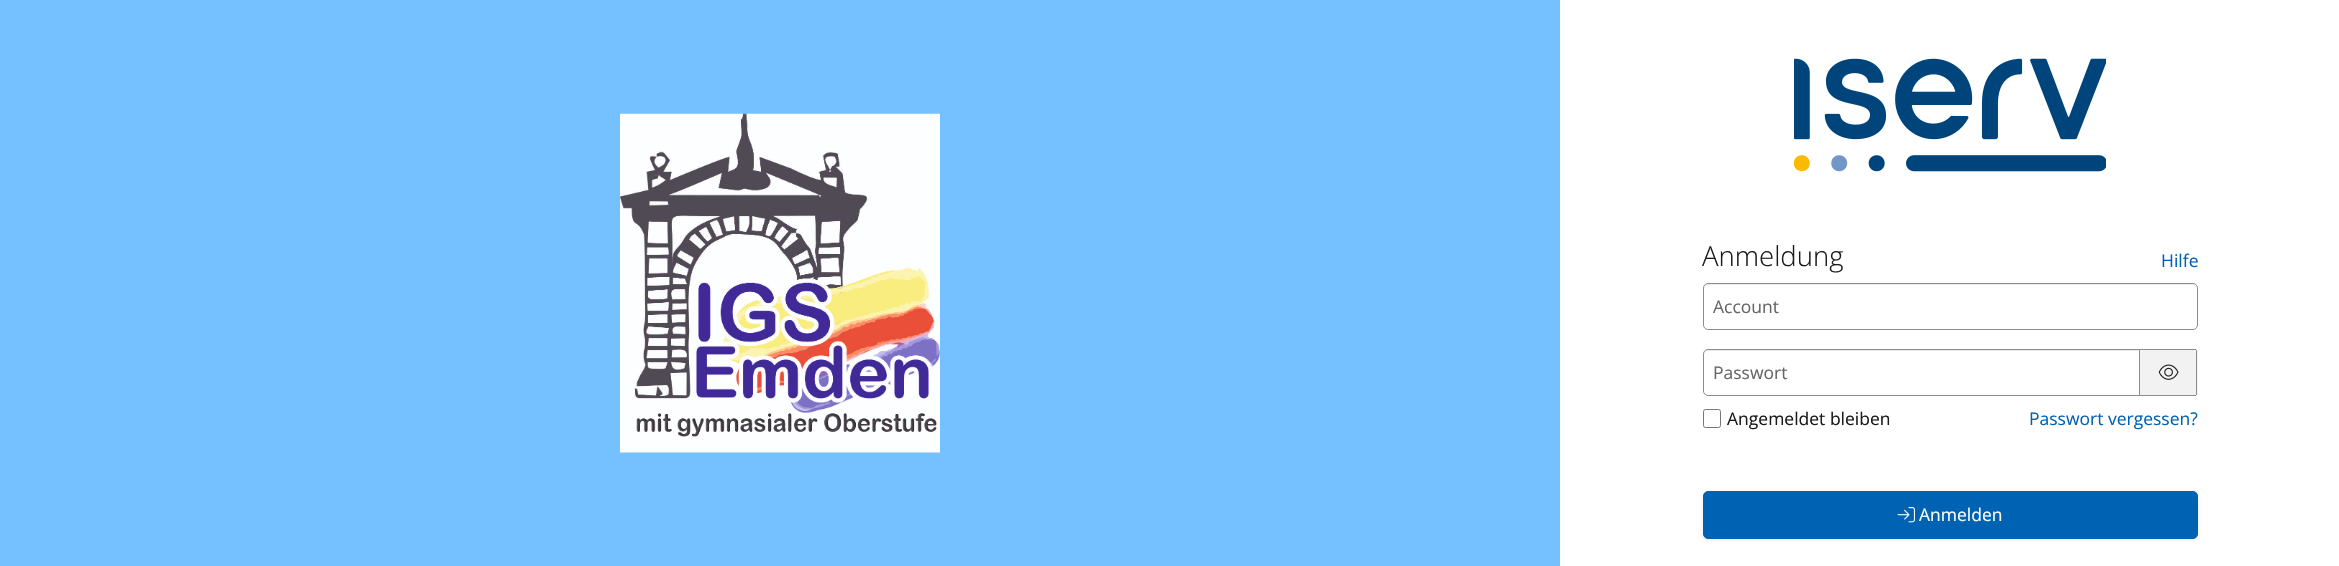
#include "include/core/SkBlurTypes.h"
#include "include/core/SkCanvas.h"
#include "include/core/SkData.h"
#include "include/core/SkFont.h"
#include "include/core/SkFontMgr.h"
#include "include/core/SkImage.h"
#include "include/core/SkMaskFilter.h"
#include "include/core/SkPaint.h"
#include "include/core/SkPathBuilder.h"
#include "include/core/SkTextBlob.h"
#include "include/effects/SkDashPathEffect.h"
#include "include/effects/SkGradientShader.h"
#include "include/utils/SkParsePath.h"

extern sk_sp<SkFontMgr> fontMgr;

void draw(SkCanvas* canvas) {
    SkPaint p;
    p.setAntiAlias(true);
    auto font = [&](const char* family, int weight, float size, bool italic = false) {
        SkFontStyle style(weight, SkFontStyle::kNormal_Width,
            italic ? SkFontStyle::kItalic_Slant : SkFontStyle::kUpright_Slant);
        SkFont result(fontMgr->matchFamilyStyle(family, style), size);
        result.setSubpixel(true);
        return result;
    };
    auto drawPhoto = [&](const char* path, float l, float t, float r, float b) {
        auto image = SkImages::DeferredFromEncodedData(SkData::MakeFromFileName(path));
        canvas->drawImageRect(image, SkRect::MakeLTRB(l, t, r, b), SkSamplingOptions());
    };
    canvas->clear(0xFFFFFFFF);
    p.setColor(0xFF75C1FF);
    canvas->drawRect(SkRect::MakeLTRB(0, 0, 1560, 566), p);
    drawPhoto("media/1.png", 620, 113, 940, 453);
    drawPhoto("media/2.png", 1794, 58, 2106, 172);
    auto font1 = font("Open Sans", 300, 27.5f);
    p.setColor(0xFF1A1A1A);
    canvas->drawString("Anmeldung", 1702, 266, font1, p);
    auto font2 = font("Open Sans", 400, 17.5f);
    p.setColor(0xFF0062B3);
    canvas->drawString("Hilfe", 2161, 267, font2, p);
    p.setColor(0xFFECECEC);
    canvas->drawPath(SkPathBuilder().moveTo(1708, 285).lineTo(2192, 285).cubicTo(2195, 285, 2196, 287, 2196, 289).cubicTo(2196, 286, 2195, 284, 2192, 284).lineTo(1708, 284).cubicTo(1705, 284, 1704, 286, 1704, 289).cubicTo(1704, 287, 1705, 285, 1708, 285).close().detach(), p);
    p.setStyle(SkPaint::kStroke_Style);
    p.setStrokeWidth(1);
    p.setColor(0xFF8C8C8C);
    canvas->drawRoundRect(SkRect::MakeLTRB(1703.5f, 283.5f, 2197.5f, 329.5f), 4.5f, 4.5f, p);
    p.setStyle(SkPaint::kFill_Style);
    p.setColor(0xFF666666);
    canvas->drawString("Account", 1713, 313, font2, p);
    p.setColor(0xFFECECEC);
    canvas->drawPath(SkPathBuilder().moveTo(1708, 351).lineTo(2139, 351).lineTo(2139, 350).lineTo(1708, 350).cubicTo(1706, 350, 1704, 352, 1704, 354).lineTo(1704, 355).cubicTo(1704, 353, 1705, 351, 1708, 351).close().detach(), p);
    p.setStyle(SkPaint::kStroke_Style);
    p.setColor(0xFF8C8C8C);
    canvas->drawPath(SkPathBuilder().moveTo(1708, 349.5f).lineTo(2139.5f, 349.5f).lineTo(2139.5f, 395.5f).lineTo(1708, 395.5f).cubicTo(1705.5f, 395.5f, 1703.5f, 393.5f, 1703.5f, 391).lineTo(1703.5f, 354).cubicTo(1703.5f, 351.5f, 1705.5f, 349.5f, 1708, 349.5f).close().detach(), p);
    p.setStyle(SkPaint::kFill_Style);
    p.setColor(0xFF666666);
    canvas->drawString("Passwort", 1713, 379, font2, p);
    p.setColor(0xFFF2F2F2);
    canvas->drawPath(SkPathBuilder().moveTo(2140, 349).lineTo(2195.5f, 349).cubicTo(2197, 349, 2198, 350, 2198, 351.5f).lineTo(2198, 393.5f).cubicTo(2198, 395, 2197, 396, 2195.5f, 396).lineTo(2140, 396).close().detach(), p);
    {
        const struct { float l, t, r, b; SkColor color; } items[] = {
            {2140, 349, 2196, 350, 0xFF8C8C8C},
            {2196, 350, 2197, 395, 0xFF8C8C8C},
            {2140, 395, 2196, 396, 0xFF8C8C8C},
        };
        for (auto [l, t, r, b, color] : items) {
            p.setColor(color);
            canvas->drawRect(SkRect::MakeLTRB(l, t, r, b), p);
        }
    }
    drawPhoto("media/3.png", 2158, 364, 2179, 380);
    p.setStyle(SkPaint::kStroke_Style);
    p.setColor(0xFF767676);
    canvas->drawRoundRect(SkRect::MakeLTRB(1703.5f, 409.5f, 1720.5f, 427.5f), 2, 2, p);
    p.setStyle(SkPaint::kFill_Style);
    p.setColor(0xFF1A1A1A);
    canvas->drawString("Angemeldet bleiben", 1727, 425, font2, p);
    p.setColor(0xFF0062B3);
    canvas->drawString("Passwort vergessen?", 2029, 425, font2, p);
    p.setColor(0x14000000);
    p.setMaskFilter(SkMaskFilter::MakeBlur(kNormal_SkBlurStyle, 2));
    canvas->drawRoundRect(SkRect::MakeLTRB(1703, 493, 2198, 540), 5, 5, p);
    p.setMaskFilter(nullptr);
    p.setColor(0xFF0062B3);
    canvas->drawRoundRect(SkRect::MakeLTRB(1703.5f, 491.5f, 2197.5f, 538.5f), 4.5f, 4.5f, p);
    p.setStyle(SkPaint::kStroke_Style);
    canvas->drawRoundRect(SkRect::MakeLTRB(1703.5f, 491.5f, 2197.5f, 538.5f), 4.5f, 4.5f, p);
    drawPhoto("media/4.png", 1897, 507, 1915, 523);
    p.setStyle(SkPaint::kFill_Style);
    p.setColor(0xFFFFFFFF);
    canvas->drawString("Anmelden", 1919, 521, font2, p);
}
